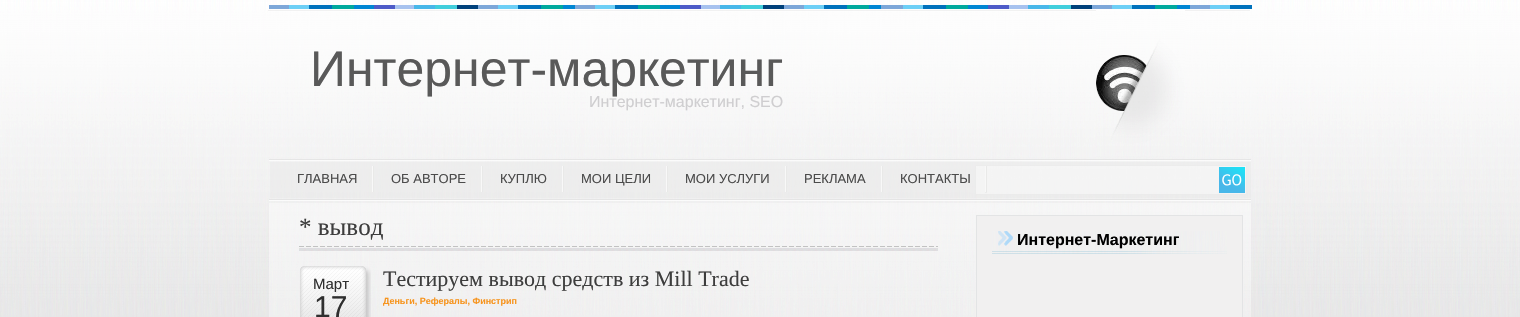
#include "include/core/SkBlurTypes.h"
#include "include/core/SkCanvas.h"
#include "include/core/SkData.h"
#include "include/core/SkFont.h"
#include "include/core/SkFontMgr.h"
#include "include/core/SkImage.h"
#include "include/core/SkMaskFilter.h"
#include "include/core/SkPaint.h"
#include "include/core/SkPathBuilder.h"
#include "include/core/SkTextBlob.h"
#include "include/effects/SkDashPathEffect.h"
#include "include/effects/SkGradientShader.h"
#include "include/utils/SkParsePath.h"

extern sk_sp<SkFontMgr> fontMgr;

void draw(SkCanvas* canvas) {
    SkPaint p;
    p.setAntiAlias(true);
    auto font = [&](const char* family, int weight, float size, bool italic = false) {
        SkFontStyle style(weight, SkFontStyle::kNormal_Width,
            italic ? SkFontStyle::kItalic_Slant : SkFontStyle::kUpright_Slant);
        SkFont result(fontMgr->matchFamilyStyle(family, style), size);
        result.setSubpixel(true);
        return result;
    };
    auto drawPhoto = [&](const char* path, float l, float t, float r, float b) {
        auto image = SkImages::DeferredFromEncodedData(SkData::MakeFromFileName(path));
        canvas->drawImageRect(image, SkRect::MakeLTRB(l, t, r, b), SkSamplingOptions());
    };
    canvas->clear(0xFFFFFFFF);
    drawPhoto("media/1.png", 0, 0, 1520, 317);
    drawPhoto("media/2.png", 268, 5, 1258, 158);
    auto font1 = font("Liberation Sans", 400, 50);
    p.setColor(0xFF595959);
    canvas->drawString("Интернет-маркетинг", 310, 86, font1, p);
    auto font2 = font("Liberation Sans", 400, 16);
    p.setColor(0xFFCFCED0);
    canvas->drawString("Интернет-маркетинг, SEO", 589, 107, font2, p);
    drawPhoto("media/3.png", 1096, 10, 1185, 157);
    drawPhoto("media/4.png", 269, 159, 1256, 203);
    drawPhoto("media/5.png", 372, 166, 374, 192);
    auto font3 = font("Liberation Sans", 400, 13);
    p.setColor(0xFF4B4B4B);
    canvas->drawString("ГЛАВНАЯ", 297, 183, font3, p);
    drawPhoto("media/5.png", 481, 166, 483, 192);
    canvas->drawString("ОБ АВТОРЕ", 391, 183, font3, p);
    drawPhoto("media/5.png", 562, 166, 564, 192);
    canvas->drawString("КУПЛЮ", 500, 183, font3, p);
    drawPhoto("media/5.png", 666, 166, 668, 192);
    canvas->drawString("МОИ ЦЕЛИ", 581, 183, font3, p);
    drawPhoto("media/5.png", 785, 166, 787, 192);
    canvas->drawString("МОИ УСЛУГИ", 685, 183, font3, p);
    drawPhoto("media/5.png", 881, 166, 883, 192);
    canvas->drawString("РЕКЛАМА", 804, 183, font3, p);
    drawPhoto("media/6.png", 985, 166, 987, 193);
    canvas->drawString("КОНТАКТЫ", 900, 183, font3, p);
    drawPhoto("media/7.png", 1219, 167, 1245, 193);
    drawPhoto("media/8.png", 260, 203, 1260, 317);
    drawPhoto("media/9.png", 299, 246, 938, 251);
    auto font4 = font("Liberation Serif", 400, 25);
    p.setColor(0xFF3D3D3D);
    canvas->drawString("* вывод", 299, 235, font4, p);
    drawPhoto("media/10.png", 300, 266, 371, 317);
    auto font5 = font("Liberation Sans", 400, 15);
    p.setColor(0xFF2F2F2F);
    canvas->drawString("Март", 313, 289, font5, p);
    auto font6 = font("Liberation Sans", 400, 30);
    canvas->drawString("17", 314, 317, font6, p);
    auto font7 = font("Liberation Serif", 400, 22);
    p.setColor(0xFF3D3D3D);
    canvas->drawString("Тестируем вывод средств из Mill Trade", 383, 286, font7, p);
    auto font8 = font("Liberation Sans", 700, 9);
    p.setColor(0xFFF7941D);
    canvas->drawString("Деньги, Рефералы, Финстрип", 383, 304, font8, p);
    p.setColor(0xFFF1F0F0);
    canvas->drawRect(SkRect::MakeLTRB(976.5f, 215.5f, 1242.5f, 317.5f), p);
    p.setStyle(SkPaint::kStroke_Style);
    p.setStrokeWidth(1);
    p.setColor(0xFFE3E4E5);
    canvas->drawRect(SkRect::MakeLTRB(976.5f, 215.5f, 1242.5f, 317.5f), p);
    drawPhoto("media/11.png", 992, 231, 1227, 254);
    auto font9 = font("Liberation Sans", 700, 16);
    p.setStyle(SkPaint::kFill_Style);
    p.setColor(0xFF000000);
    canvas->drawString("Интернет-Маркетинг", 1017, 245, font9, p);
}
